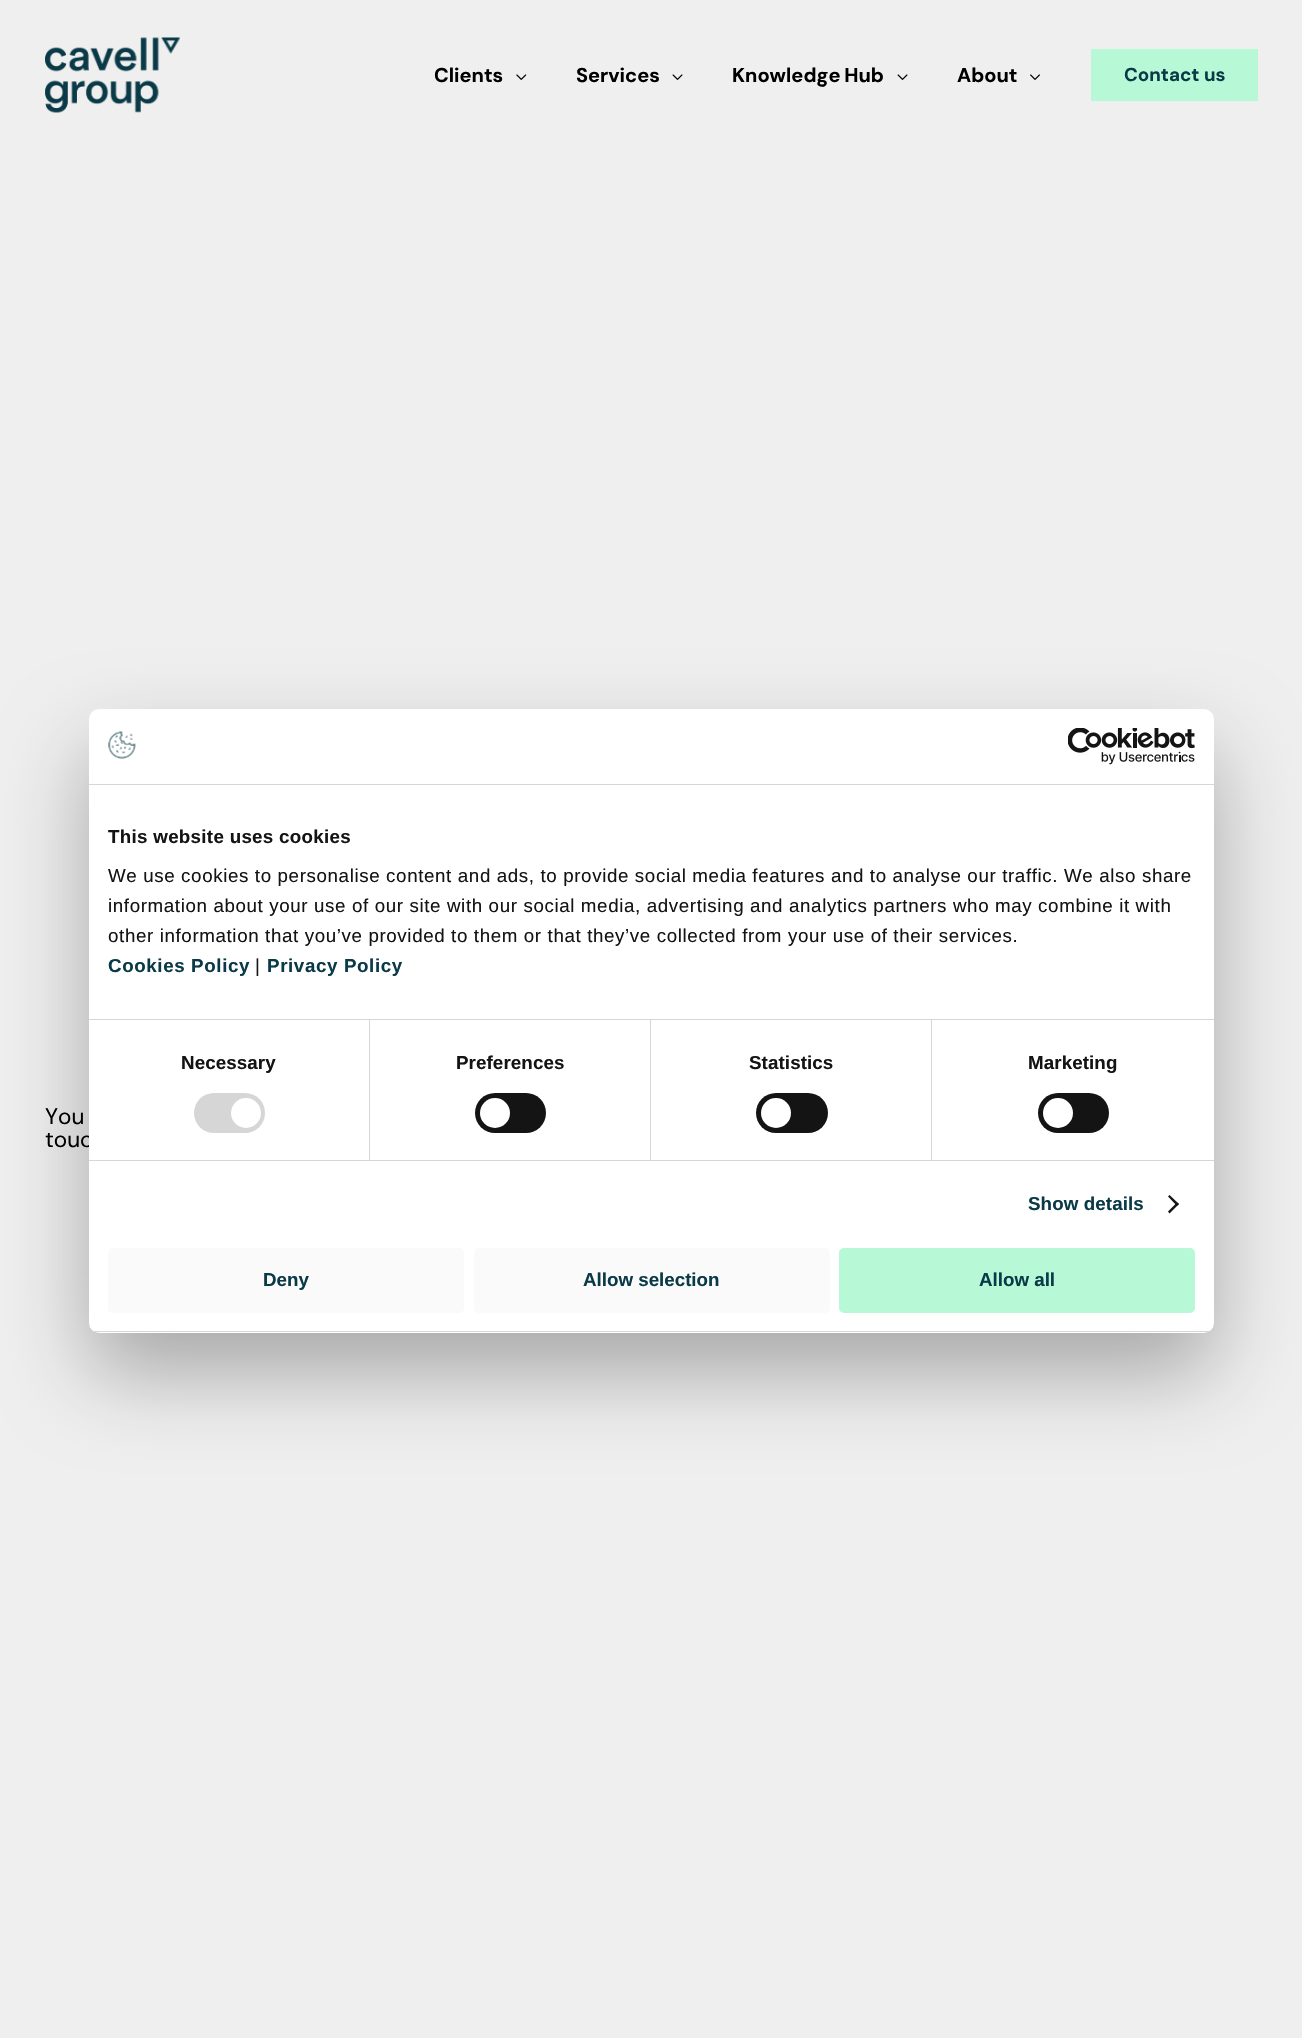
#include "include/core/SkBlurTypes.h"
#include "include/core/SkCanvas.h"
#include "include/core/SkData.h"
#include "include/core/SkFont.h"
#include "include/core/SkFontMgr.h"
#include "include/core/SkImage.h"
#include "include/core/SkMaskFilter.h"
#include "include/core/SkPaint.h"
#include "include/core/SkPathBuilder.h"
#include "include/core/SkTextBlob.h"
#include "include/effects/SkDashPathEffect.h"
#include "include/effects/SkGradientShader.h"
#include "include/utils/SkParsePath.h"

extern sk_sp<SkFontMgr> fontMgr;

void draw(SkCanvas* canvas) {
    SkPaint p;
    p.setAntiAlias(true);
    auto font = [&](const char* family, int weight, float size, bool italic = false) {
        SkFontStyle style(weight, SkFontStyle::kNormal_Width,
            italic ? SkFontStyle::kItalic_Slant : SkFontStyle::kUpright_Slant);
        SkFont result(fontMgr->matchFamilyStyle(family, style), size);
        result.setSubpixel(true);
        return result;
    };
    auto drawTracked = [&](const char* s, float x, float y, const SkFont& font, const SkPaint& ink, float letter, float word) {
        std::vector<SkGlyphID> glyphs(font.countText(s, strlen(s), SkTextEncoding::kUTF8));
        std::vector<float> xs(glyphs.size());
        font.textToGlyphs(s, strlen(s), SkTextEncoding::kUTF8, glyphs);
        font.getXPos(glyphs, xs, x);
        float extra = 0;
        for (size_t i = 0; i < glyphs.size(); i++) {
            xs[i] += extra;
            extra += letter + word * (glyphs[i] == font.unicharToGlyph(' '));
        }
        canvas->drawTextBlob(SkTextBlob::MakeFromPosHGlyphs(glyphs, xs, y, font), 0, 0, ink);
    };
    auto drawPhoto = [&](const char* path, float l, float t, float r, float b) {
        auto image = SkImages::DeferredFromEncodedData(SkData::MakeFromFileName(path));
        canvas->drawImageRect(image, SkRect::MakeLTRB(l, t, r, b), SkSamplingOptions());
    };
    canvas->clear(0xFFEFEFEF);
    drawPhoto("media/1.png", 45, 37, 180, 113);
    auto font1 = font("DM Sans", 700, 20);
    p.setColor(0xFF000000);
    canvas->drawString("Clients", 434, 82, font1, p);
    drawPhoto("media/2.png", 516, 74, 527, 80);
    canvas->drawString("Services", 576, 82, font1, p);
    drawPhoto("media/3.png", 672, 74, 683, 80);
    drawTracked("Knowledge Hub", 732, 82, font1, p, 0, -1);
    drawPhoto("media/3.png", 897, 74, 908, 80);
    canvas->drawString("About", 957, 82, font1, p);
    drawPhoto("media/4.png", 1030, 74, 1040, 80);
    p.setColor(0xFFB7F8D7);
    canvas->drawRect(SkRect::MakeLTRB(1091, 49, 1258, 101), p);
    auto font2 = font("DM Sans", 700, 18.75f);
    p.setColor(0xFF0A3A47);
    canvas->drawString("Contact us", 1124, 81, font2, p);
    auto font3 = font("DM Sans", 400, 22.5f);
    p.setColor(0xFF000000);
    drawTracked("You", 45, 1124, font3, p, 0, -1);
    canvas->drawString("touc", 45, 1147, font3, p);
    p.setColor(0x4D000000);
    p.setMaskFilter(SkMaskFilter::MakeBlur(kNormal_SkBlurStyle, 42.5f));
    canvas->drawRoundRect(SkRect::MakeLTRB(89, 749, 1214, 1373), 10, 10, p);
    p.setMaskFilter(nullptr);
    p.setColor(0xFFFFFFFF);
    canvas->drawRoundRect(SkRect::MakeLTRB(89, 709, 1214, 1333), 10, 10, p);
    p.setColor(0xFFD6D6D6);
    canvas->drawRect(SkRect::MakeLTRB(89, 784, 1214, 785), p);
    drawPhoto("media/5.png", 108, 731, 136, 759);
    drawPhoto("media/6.png", 1068, 728, 1195, 765);
    canvas->drawRect(SkRect::MakeLTRB(89, 1019, 1214, 1020), p);
    auto font4 = font("Liberation Sans", 700, 18.75f);
    p.setColor(0xFF141414);
    drawTracked("This website uses cookies", 108, 843, font4, p, 0.3f, 0);
    auto font5 = font("Liberation Sans", 400, 18.75f);
    {
        const struct { const char* s; float x, y; } items[] = {
            {"We use cookies to personalise content and ads, to provide social media features and to analyse our traffic. We also share", 108, 882},
            {"information about your use of our site with our social media, advertising and analytics partners who may combine it with", 108, 912},
            {"other information that you’ve provided to them or that they’ve collected from your use of their services.", 108, 942},
        };
        for (auto [s, x, y] : items) {
            drawTracked(s, x, y, font5, p, 0.62f, 0);
        }
    }
    p.setColor(0xFF0A3A47);
    drawTracked("Cookies Policy", 108, 972, font4, p, 0.62f, 0);
    p.setColor(0xFF141414);
    drawTracked("|", 255, 972, font5, p, 0.62f, 0);
    p.setColor(0xFF0A3A47);
    drawTracked("Privacy Policy", 267, 972, font4, p, 0.62f, 0);
    p.setColor(0xFFD6D6D6);
    canvas->drawRect(SkRect::MakeLTRB(89, 1160, 1214, 1161), p);
    canvas->drawRect(SkRect::MakeLTRB(369, 1020, 370, 1160), p);
    p.setColor(0xFF141414);
    drawTracked("Necessary", 181, 1069, font4, p, 0.1f, 0);
    p.setColor(0xFFD6D6D6);
    canvas->drawRoundRect(SkRect::MakeLTRB(194, 1093, 265, 1133), 20, 20, p);
    p.setColor(0xFFFFFFFF);
    canvas->drawCircle(246, 1113, 15, p);
    p.setColor(0xFFD6D6D6);
    canvas->drawRect(SkRect::MakeLTRB(650, 1020, 651, 1160), p);
    p.setColor(0xFF141414);
    drawTracked("Preferences", 456, 1069, font4, p, 0.1f, 0);
    canvas->drawRoundRect(SkRect::MakeLTRB(475, 1093, 546, 1133), 20, 20, p);
    p.setColor(0xFFFFFFFF);
    canvas->drawCircle(495, 1113, 15, p);
    p.setColor(0xFFD6D6D6);
    canvas->drawRect(SkRect::MakeLTRB(931, 1020, 932, 1160), p);
    p.setColor(0xFF141414);
    drawTracked("Statistics", 749, 1069, font4, p, 0.1f, 0);
    canvas->drawRoundRect(SkRect::MakeLTRB(756, 1093, 828, 1133), 20, 20, p);
    p.setColor(0xFFFFFFFF);
    canvas->drawCircle(776, 1113, 15, p);
    p.setColor(0xFF141414);
    drawTracked("Marketing", 1028, 1069, font4, p, 0.1f, 0);
    canvas->drawRoundRect(SkRect::MakeLTRB(1038, 1093, 1109, 1133), 20, 20, p);
    p.setColor(0xFFFFFFFF);
    canvas->drawCircle(1058, 1113, 15, p);
    p.setColor(0xFF0A3A47);
    drawTracked("Show details", 1028, 1210, font4, p, 0.1f, 0);
    p.setColor(0xFF141414);
    canvas->drawPath(SkPathBuilder().moveTo(1169.5f, 1195).lineTo(1179, 1204).lineTo(1177, 1206).lineTo(1168, 1196.5f).close().detach(), p);
    canvas->drawPath(SkPathBuilder().moveTo(1177, 1202.5f).lineTo(1179, 1204).lineTo(1169.5f, 1213.5f).lineTo(1168, 1211.5f).close().detach(), p);
    canvas->save();
    canvas->clipPath(SkPathBuilder().moveTo(99, 709).lineTo(1204, 709).cubicTo(1209.5f, 709, 1214, 713.5f, 1214, 719).lineTo(1214, 1323).cubicTo(1214, 1328.5f, 1209.5f, 1333, 1204, 1333).lineTo(99, 1333).cubicTo(93.5f, 1333, 89, 1328.5f, 89, 1323).lineTo(89, 719).cubicTo(89, 713.5f, 93.5f, 709, 99, 709).close().detach(), true);
    p.setColor(0xFFD6D6D6);
    canvas->drawRect(SkRect::MakeLTRB(89, 1331, 1214, 1332), p);
    canvas->restore();
    p.setColor(0xFFFAFAFA);
    canvas->drawRoundRect(SkRect::MakeLTRB(108, 1248, 464, 1313), 5, 5, p);
    p.setColor(0xFF0A3A47);
    canvas->drawString("Deny", 263, 1286, font4, p);
    p.setColor(0xFFFAFAFA);
    canvas->drawRoundRect(SkRect::MakeLTRB(474, 1248, 830, 1313), 5, 5, p);
    p.setColor(0xFF0A3A47);
    canvas->drawString("Allow selection", 583, 1286, font4, p);
    p.setColor(0xFFB7F8D7);
    canvas->drawRoundRect(SkRect::MakeLTRB(840.5f, 1249.5f, 1193.5f, 1311.5f), 3.5f, 3.5f, p);
    p.setStyle(SkPaint::kStroke_Style);
    p.setStrokeWidth(3);
    canvas->drawRoundRect(SkRect::MakeLTRB(840.5f, 1249.5f, 1193.5f, 1311.5f), 3.5f, 3.5f, p);
    p.setStyle(SkPaint::kFill_Style);
    p.setColor(0xFF0A3A47);
    canvas->drawString("Allow all", 979, 1286, font4, p);
}
